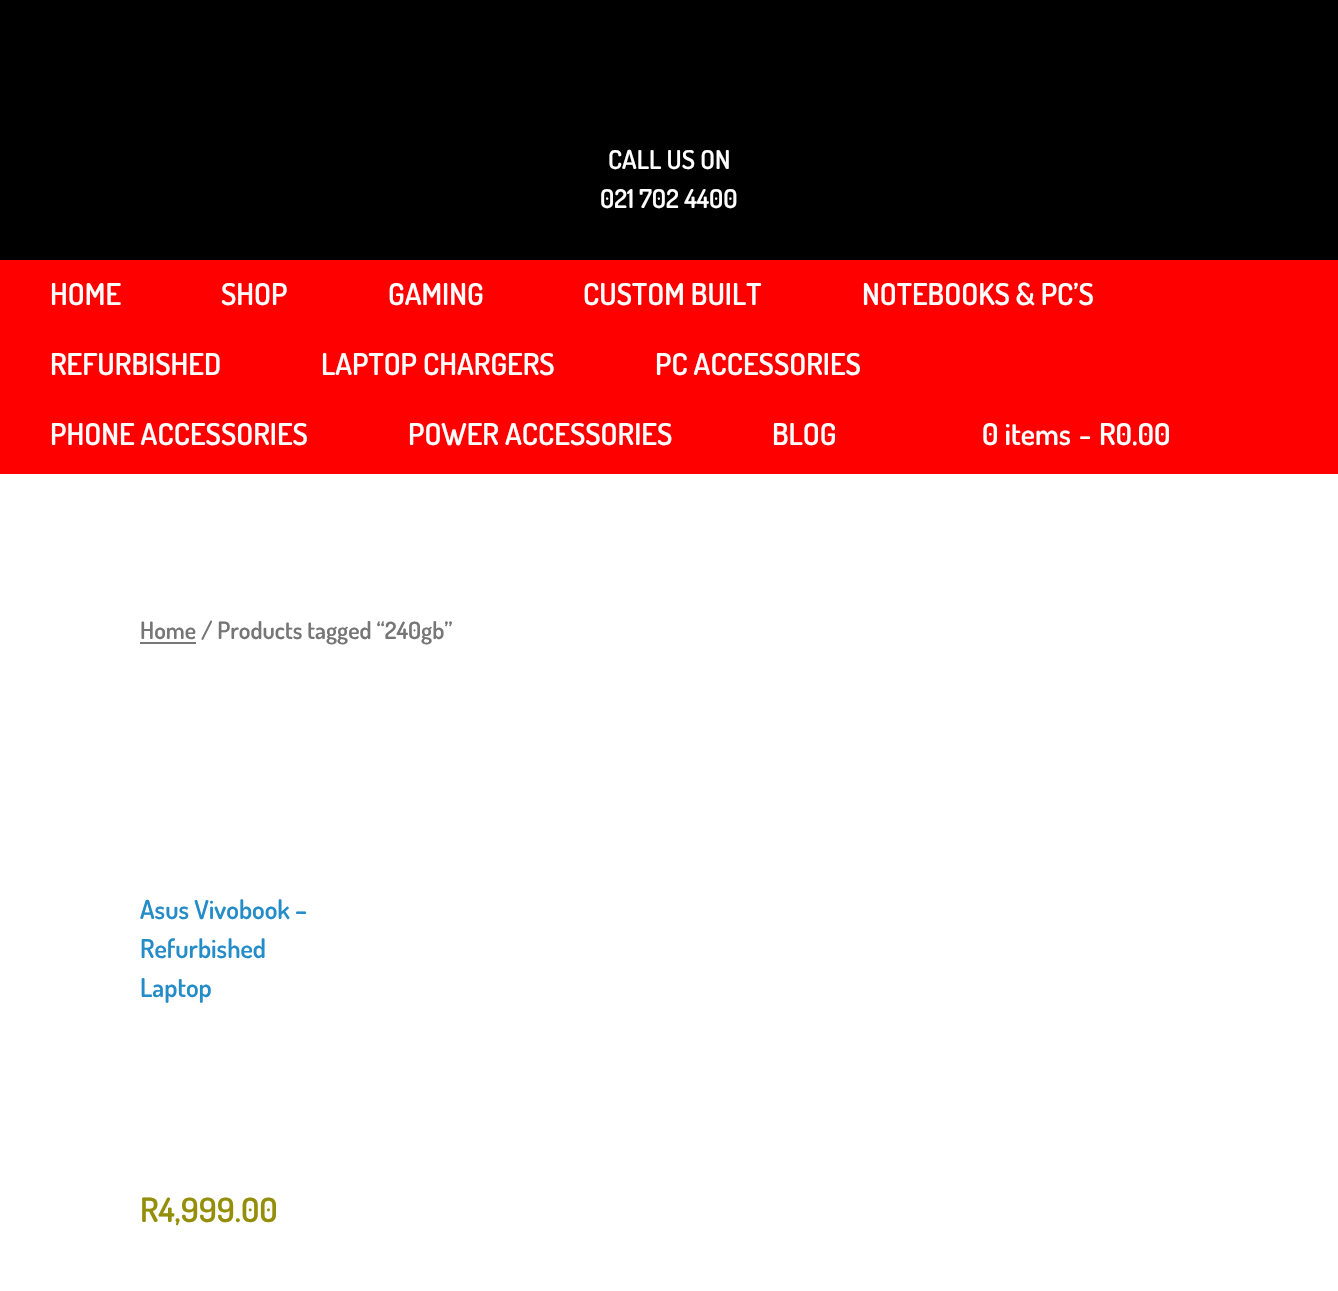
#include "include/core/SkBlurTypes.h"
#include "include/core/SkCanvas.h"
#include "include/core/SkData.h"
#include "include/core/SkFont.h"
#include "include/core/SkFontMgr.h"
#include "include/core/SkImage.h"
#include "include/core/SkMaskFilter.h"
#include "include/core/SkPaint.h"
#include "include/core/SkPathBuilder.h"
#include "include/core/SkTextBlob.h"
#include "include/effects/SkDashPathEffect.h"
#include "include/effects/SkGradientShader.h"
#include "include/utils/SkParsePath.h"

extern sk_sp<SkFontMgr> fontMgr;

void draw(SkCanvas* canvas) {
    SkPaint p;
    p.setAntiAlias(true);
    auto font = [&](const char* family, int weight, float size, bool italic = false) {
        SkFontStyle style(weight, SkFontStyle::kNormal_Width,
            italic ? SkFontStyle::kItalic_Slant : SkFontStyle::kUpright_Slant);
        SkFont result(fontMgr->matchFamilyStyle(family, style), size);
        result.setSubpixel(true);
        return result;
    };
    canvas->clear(0xFF000000);
    auto font1 = font("Dosis", 600, 26);
    p.setColor(0xFFFFFFFF);
    canvas->drawString("CALL US ON", 608, 169, font1, p);
    canvas->drawString("021 702 4400", 600, 208, font1, p);
    p.setColor(0xFFFF0000);
    canvas->drawRect(SkRect::MakeLTRB(0, 260, 1338, 474), p);
    auto font2 = font("Dosis", 600, 30);
    p.setColor(0xFFFFFFFF);
    {
        const struct { const char* s; float x, y; } items[] = {
            {"HOME", 50, 305},
            {"SHOP", 221, 305},
            {"GAMING", 388, 305},
            {"CUSTOM BUILT", 583, 305},
            {"NOTEBOOKS & PC’S", 862, 305},
            {"REFURBISHED", 50, 375},
            {"LAPTOP CHARGERS", 321, 375},
            {"PC ACCESSORIES", 655, 375},
            {"PHONE ACCESSORIES", 50, 445},
            {"POWER ACCESSORIES", 408, 445},
            {"BLOG", 772, 445},
            {"0 items", 982, 445},
            {"-", 1079, 445},
            {"R0.00", 1099, 445},
        };
        for (auto [s, x, y] : items) {
            canvas->drawString(s, x, y, font2, p);
        }
    }
    canvas->drawRect(SkRect::MakeLTRB(0, 474, 1338, 1291), p);
    p.setColor(0xFF767676);
    canvas->drawRect(SkRect::MakeLTRB(140, 642, 196, 644), p);
    auto font3 = font("Dosis", 600, 23.9f);
    canvas->drawString("Home / Products tagged “240gb”", 140, 639, font3, p);
    p.setColor(0xFF248CC8);
    {
        const struct { const char* s; float x, y; } items[] = {
            {"Asus Vivobook –", 140, 919},
            {"Refurbished", 140, 958},
            {"Laptop", 140, 997},
        };
        for (auto [s, x, y] : items) {
            canvas->drawString(s, x, y, font1, p);
        }
    }
    auto font4 = font("Dosis", 600, 33.5f);
    p.setColor(0xFF958E09);
    canvas->drawString("R4,999.00", 140, 1222, font4, p);
}
